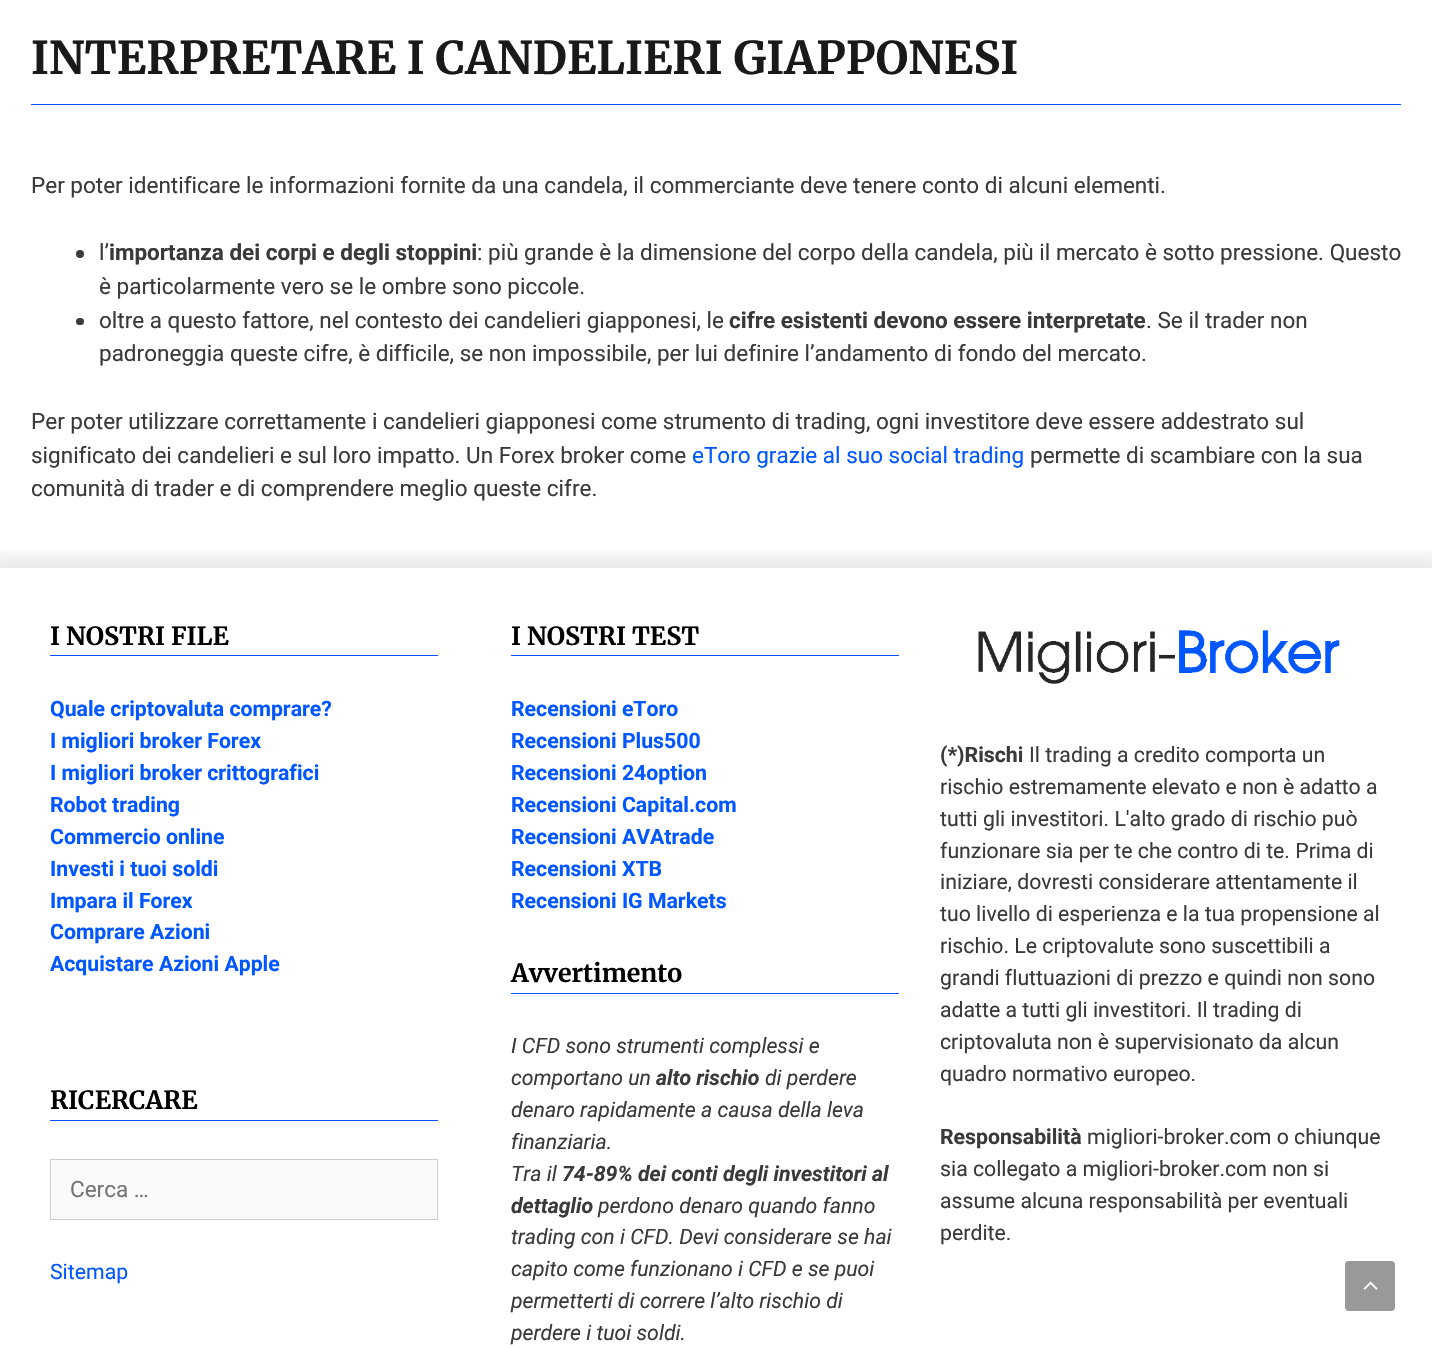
#include "include/core/SkBlurTypes.h"
#include "include/core/SkCanvas.h"
#include "include/core/SkData.h"
#include "include/core/SkFont.h"
#include "include/core/SkFontMgr.h"
#include "include/core/SkImage.h"
#include "include/core/SkMaskFilter.h"
#include "include/core/SkPaint.h"
#include "include/core/SkPathBuilder.h"
#include "include/core/SkTextBlob.h"
#include "include/effects/SkDashPathEffect.h"
#include "include/effects/SkGradientShader.h"
#include "include/utils/SkParsePath.h"

extern sk_sp<SkFontMgr> fontMgr;

void draw(SkCanvas* canvas) {
    SkPaint p;
    p.setAntiAlias(true);
    auto font = [&](const char* family, int weight, float size, bool italic = false) {
        SkFontStyle style(weight, SkFontStyle::kNormal_Width,
            italic ? SkFontStyle::kItalic_Slant : SkFontStyle::kUpright_Slant);
        SkFont result(fontMgr->matchFamilyStyle(family, style), size);
        result.setSubpixel(true);
        return result;
    };
    auto drawPhoto = [&](const char* path, float l, float t, float r, float b) {
        auto image = SkImages::DeferredFromEncodedData(SkData::MakeFromFileName(path));
        canvas->drawImageRect(image, SkRect::MakeLTRB(l, t, r, b), SkSamplingOptions());
    };
    canvas->clear(0xFFFFFFFF);
    p.setColor(0xFF0157FF);
    canvas->drawRect(SkRect::MakeLTRB(31, 104, 1401, 105), p);
    auto font1 = font("Merriweather", 700, 45);
    p.setColor(0xFF191919);
    canvas->drawString("INTERPRETARE I CANDELIERI GIAPPONESI", 31, 74, font1, p);
    auto font2 = font("Roboto", 400, 22.5f);
    p.setColor(0xFF3A3A3A);
    canvas->drawString("Per poter identificare le informazioni fornite da una candela, il commerciante deve tenere conto di alcuni elementi.", 31, 193, font2, p);
    canvas->drawCircle(80, 254, 4, p);
    canvas->drawString("l’", 99, 260, font2, p);
    auto font3 = font("Roboto", 700, 22.5f);
    canvas->drawString("importanza dei corpi e degli stoppini", 109, 260, font3, p);
    canvas->drawString(": più grande è la dimensione del corpo della candela, più il mercato è sotto pressione. Questo", 477, 260, font2, p);
    canvas->drawString("è particolarmente vero se le ombre sono piccole.", 99, 294, font2, p);
    canvas->drawRoundRect(SkRect::MakeLTRB(76, 318, 84, 325), 3.5f, 3.5f, p);
    canvas->drawString("oltre a questo fattore, nel contesto dei candelieri giapponesi, le", 99, 328, font2, p);
    canvas->drawString("cifre esistenti devono essere interpretate", 729, 328, font3, p);
    {
        const struct { const char* s; float x, y; } items[] = {
            {". Se il trader non", 1146, 328},
            {"padroneggia queste cifre, è difficile, se non impossibile, per lui definire l’andamento di fondo del mercato.", 99, 361},
            {"Per poter utilizzare correttamente i candelieri giapponesi come strumento di trading, ogni investitore deve essere addestrato sul", 31, 429},
            {"significato dei candelieri e sul loro impatto. Un Forex broker come", 31, 463},
        };
        for (auto [s, x, y] : items) {
            canvas->drawString(s, x, y, font2, p);
        }
    }
    p.setColor(0xFF0157FF);
    canvas->drawString("eToro grazie al suo social trading", 692, 463, font2, p);
    p.setColor(0xFF3A3A3A);
    canvas->drawString("permette di scambiare con la sua", 1030, 463, font2, p);
    canvas->drawString("comunità di trader e di comprendere meglio queste cifre.", 31, 496, font2, p);
    canvas->save();
    canvas->clipRect(SkRect::MakeLTRB(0, 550, 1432, 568));
    p.setColor(0x1A020A1A);
    p.setMaskFilter(SkMaskFilter::MakeBlur(kNormal_SkBlurStyle, 9.5f));
    canvas->drawRect(SkRect::MakeLTRB(-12, 558, 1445, 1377), p);
    p.setMaskFilter(nullptr);
    canvas->restore();
    p.setColor(0xFF0157FF);
    canvas->drawRect(SkRect::MakeLTRB(50, 655, 438, 656), p);
    auto font4 = font("Merriweather", 700, 25);
    p.setColor(0xFF000000);
    canvas->drawString("I NOSTRI FILE", 50, 645, font4, p);
    auto font5 = font("Roboto", 700, 21.25f);
    p.setColor(0xFF0157FF);
    {
        const struct { const char* s; float x, y; } items[] = {
            {"Quale criptovaluta comprare?", 50, 716},
            {"I migliori broker Forex", 50, 748},
            {"I migliori broker crittografici", 50, 780},
            {"Robot trading", 50, 812},
            {"Commercio online", 50, 844},
            {"Investi i tuoi soldi", 50, 876},
            {"Impara il Forex", 50, 908},
            {"Comprare Azioni", 50, 939},
            {"Acquistare Azioni Apple", 50, 971},
        };
        for (auto [s, x, y] : items) {
            canvas->drawString(s, x, y, font5, p);
        }
    }
    canvas->drawRect(SkRect::MakeLTRB(50, 1120, 438, 1121), p);
    p.setColor(0xFF000000);
    canvas->drawString("RICERCARE", 50, 1109, font4, p);
    p.setColor(0xFFFAFAFA);
    canvas->drawRect(SkRect::MakeLTRB(50.5f, 1159.5f, 437.5f, 1219.5f), p);
    p.setStyle(SkPaint::kStroke_Style);
    p.setStrokeWidth(1);
    p.setColor(0xFFCCCCCC);
    canvas->drawRect(SkRect::MakeLTRB(50.5f, 1159.5f, 437.5f, 1219.5f), p);
    p.setStyle(SkPaint::kFill_Style);
    p.setColor(0xFF757575);
    canvas->drawString("Cerca …", 70, 1197, font2, p);
    auto font6 = font("Roboto", 400, 21.25f);
    p.setColor(0xFF0157FF);
    canvas->drawString("Sitemap", 50, 1279, font6, p);
    canvas->drawRect(SkRect::MakeLTRB(511, 655, 899, 656), p);
    p.setColor(0xFF000000);
    canvas->drawString("I NOSTRI TEST", 511, 645, font4, p);
    p.setColor(0xFF0157FF);
    {
        const struct { const char* s; float x, y; } items[] = {
            {"Recensioni eToro", 511, 716},
            {"Recensioni Plus500", 511, 748},
            {"Recensioni 24option", 511, 780},
            {"Recensioni Capital.com", 511, 812},
            {"Recensioni AVAtrade", 511, 844},
            {"Recensioni XTB", 511, 876},
            {"Recensioni IG Markets", 511, 908},
        };
        for (auto [s, x, y] : items) {
            canvas->drawString(s, x, y, font5, p);
        }
    }
    canvas->drawRect(SkRect::MakeLTRB(511, 993, 899, 994), p);
    p.setColor(0xFF000000);
    canvas->drawString("Avvertimento", 511, 982, font4, p);
    auto font7 = font("Roboto", 400, 21.25f, true);
    p.setColor(0xFF3A3A3A);
    canvas->drawString("I CFD sono strumenti complessi e", 511, 1053, font7, p);
    canvas->drawString("comportano un", 511, 1085, font7, p);
    auto font8 = font("Roboto", 700, 21.25f, true);
    canvas->drawString("alto rischio", 656, 1085, font8, p);
    {
        const struct { const char* s; float x, y; } items[] = {
            {"di perdere", 765, 1085},
            {"denaro rapidamente a causa della leva", 511, 1117},
            {"finanziaria.", 511, 1149},
            {"Tra il", 511, 1181},
        };
        for (auto [s, x, y] : items) {
            canvas->drawString(s, x, y, font7, p);
        }
    }
    canvas->drawString("74-89% dei conti degli investitori al", 562, 1181, font8, p);
    canvas->drawString("dettaglio", 511, 1213, font8, p);
    {
        const struct { const char* s; float x, y; } items[] = {
            {"perdono denaro quando fanno", 598, 1213},
            {"trading con i CFD. Devi considerare se hai", 511, 1244},
            {"capito come funzionano i CFD e se puoi", 511, 1276},
            {"permetterti di correre l’alto rischio di", 511, 1308},
            {"perdere i tuoi soldi.", 511, 1340},
        };
        for (auto [s, x, y] : items) {
            canvas->drawString(s, x, y, font7, p);
        }
    }
    drawPhoto("media/1.png", 978, 630, 1340, 684);
    canvas->drawString("(*)Rischi", 940, 762, font5, p);
    {
        const struct { const char* s; float x, y; } items[] = {
            {"Il trading a credito comporta un", 1029, 762},
            {"rischio estremamente elevato e non è adatto a", 940, 794},
            {"tutti gli investitori. L'alto grado di rischio può", 940, 826},
            {"funzionare sia per te che contro di te. Prima di", 940, 858},
            {"iniziare, dovresti considerare attentamente il", 940, 889},
            {"tuo livello di esperienza e la tua propensione al", 940, 921},
            {"rischio. Le criptovalute sono suscettibili a", 940, 953},
            {"grandi fluttuazioni di prezzo e quindi non sono", 940, 985},
            {"adatte a tutti gli investitori. Il trading di", 940, 1017},
            {"criptovaluta non è supervisionato da alcun", 940, 1049},
            {"quadro normativo europeo.", 940, 1081},
        };
        for (auto [s, x, y] : items) {
            canvas->drawString(s, x, y, font6, p);
        }
    }
    canvas->drawString("Responsabilità", 940, 1144, font5, p);
    {
        const struct { const char* s; float x, y; } items[] = {
            {"migliori-broker.com o chiunque", 1087, 1144},
            {"sia collegato a migliori-broker.com non si", 940, 1176},
            {"assume alcuna responsabilità per eventuali", 940, 1208},
            {"perdite.", 940, 1240},
        };
        for (auto [s, x, y] : items) {
            canvas->drawString(s, x, y, font6, p);
        }
    }
    p.setColor(0xFF999999);
    canvas->drawRoundRect(SkRect::MakeLTRB(1345, 1261, 1395, 1311), 4, 4, p);
    drawPhoto("media/2.png", 1363, 1281, 1378, 1290);
}
